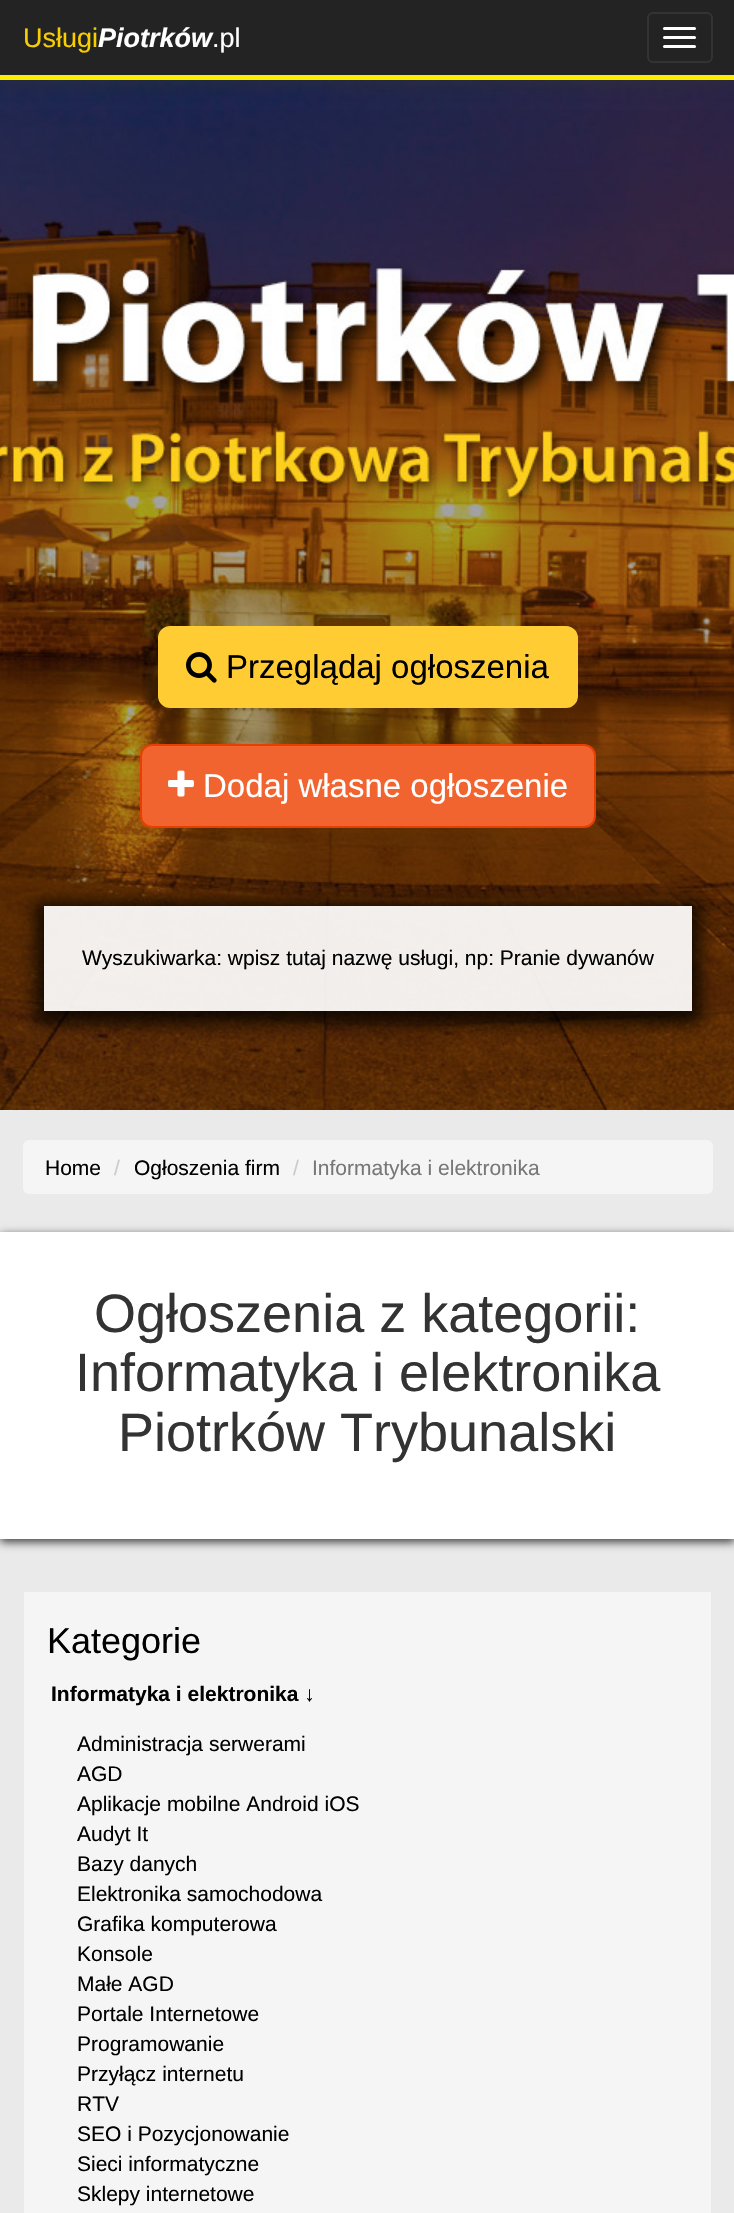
#include "include/core/SkBlurTypes.h"
#include "include/core/SkCanvas.h"
#include "include/core/SkData.h"
#include "include/core/SkFont.h"
#include "include/core/SkFontMgr.h"
#include "include/core/SkImage.h"
#include "include/core/SkMaskFilter.h"
#include "include/core/SkPaint.h"
#include "include/core/SkPathBuilder.h"
#include "include/core/SkTextBlob.h"
#include "include/effects/SkDashPathEffect.h"
#include "include/effects/SkGradientShader.h"
#include "include/utils/SkParsePath.h"

extern sk_sp<SkFontMgr> fontMgr;

void draw(SkCanvas* canvas) {
    SkPaint p;
    p.setAntiAlias(true);
    auto font = [&](const char* family, int weight, float size, bool italic = false) {
        SkFontStyle style(weight, SkFontStyle::kNormal_Width,
            italic ? SkFontStyle::kItalic_Slant : SkFontStyle::kUpright_Slant);
        SkFont result(fontMgr->matchFamilyStyle(family, style), size);
        result.setSubpixel(true);
        return result;
    };
    auto drawPhoto = [&](const char* path, float l, float t, float r, float b) {
        auto image = SkImages::DeferredFromEncodedData(SkData::MakeFromFileName(path));
        canvas->drawImageRect(image, SkRect::MakeLTRB(l, t, r, b), SkSamplingOptions());
    };
    canvas->clear(0xFFEAEAEA);
    drawPhoto("media/1.png", 0, 80, 734, 1110);
    p.setColor(0xBF323232);
    p.setMaskFilter(SkMaskFilter::MakeBlur(kNormal_SkBlurStyle, 10));
    canvas->drawRect(SkRect::MakeLTRB(0, 0, 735, 80), p);
    p.setMaskFilter(nullptr);
    p.setColor(0xFF232323);
    canvas->drawRect(SkRect::MakeLTRB(0, 0, 734, 75), p);
    p.setColor(0xFFFDEB00);
    canvas->drawRect(SkRect::MakeLTRB(0, 75, 734, 80), p);
    auto font1 = font("Liberation Sans", 400, 27);
    p.setColor(0xFFF9CE00);
    canvas->drawString("Usługi", 23, 47, font1, p);
    auto font2 = font("Liberation Sans", 700, 27, true);
    p.setColor(0xFFFFFFFF);
    canvas->drawString("Piotrków", 98, 47, font2, p);
    canvas->drawString(".pl", 212, 47, font1, p);
    p.setStyle(SkPaint::kStroke_Style);
    p.setStrokeWidth(2);
    p.setColor(0xFF333333);
    canvas->drawRoundRect(SkRect::MakeLTRB(648, 13, 712, 62), 5, 5, p);
    p.setStyle(SkPaint::kFill_Style);
    p.setColor(0xFFFFFFFF);
    canvas->drawRoundRect(SkRect::MakeLTRB(663, 27, 696, 30), 1.5f, 1.5f, p);
    canvas->drawRoundRect(SkRect::MakeLTRB(663, 36, 696, 39), 1.5f, 1.5f, p);
    canvas->drawRoundRect(SkRect::MakeLTRB(663, 45, 696, 48), 1.5f, 1.5f, p);
    p.setColor(0xFFFFCC33);
    canvas->drawRoundRect(SkRect::MakeLTRB(159, 627, 577, 707), 11, 11, p);
    p.setStyle(SkPaint::kStroke_Style);
    canvas->drawRoundRect(SkRect::MakeLTRB(159, 627, 577, 707), 11, 11, p);
    drawPhoto("media/2.png", 186, 652, 217, 683);
    auto font3 = font("Liberation Sans", 400, 33);
    p.setStyle(SkPaint::kFill_Style);
    p.setColor(0xFF000000);
    canvas->drawString("Przeglądaj ogłoszenia", 226, 678, font3, p);
    p.setColor(0xFFF2642F);
    canvas->drawRoundRect(SkRect::MakeLTRB(141, 745, 595, 827), 11, 11, p);
    p.setStyle(SkPaint::kStroke_Style);
    p.setColor(0xFFE73F00);
    canvas->drawRoundRect(SkRect::MakeLTRB(141, 745, 595, 827), 11, 11, p);
    drawPhoto("media/3.png", 168, 770, 194, 797);
    p.setStyle(SkPaint::kFill_Style);
    p.setColor(0xFFFFFFFF);
    canvas->drawString("Dodaj własne ogłoszenie", 203, 797, font3, p);
    canvas->save();
    canvas->clipPath(SkPathBuilder(SkPathFillType::kEvenOdd).moveTo(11, 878).lineTo(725, 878).lineTo(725, 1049).lineTo(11, 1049).close().moveTo(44, 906).lineTo(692, 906).lineTo(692, 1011).lineTo(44, 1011).close().detach(), true);
    p.setColor(0xBF000000);
    p.setMaskFilter(SkMaskFilter::MakeBlur(kNormal_SkBlurStyle, 7.5f));
    canvas->drawRect(SkRect::MakeLTRB(35, 902, 701, 1025), p);
    p.setMaskFilter(nullptr);
    canvas->restore();
    p.setColor(0xEBFFFFFF);
    canvas->drawRect(SkRect::MakeLTRB(44, 906, 692, 1011), p);
    auto font4 = font("Liberation Sans", 400, 21);
    p.setColor(0xFF000000);
    canvas->drawString("Wyszukiwarka: wpisz tutaj nazwę usługi, np: Pranie dywanów", 82, 965, font4, p);
    p.setColor(0xFFF5F5F5);
    canvas->drawRoundRect(SkRect::MakeLTRB(23, 1140, 713, 1194), 6, 6, p);
    p.setColor(0xFF000000);
    canvas->drawString("Home", 45, 1175, font4, p);
    p.setColor(0xFFCCCCCC);
    canvas->drawString("/", 114, 1175, font4, p);
    p.setColor(0xFF000000);
    canvas->drawString("Ogłoszenia firm", 134, 1175, font4, p);
    p.setColor(0xFFCCCCCC);
    canvas->drawString("/", 293, 1175, font4, p);
    p.setColor(0xFF777777);
    canvas->drawString("Informatyka i elektronika", 312, 1175, font4, p);
    p.setColor(0xBF000000);
    p.setMaskFilter(SkMaskFilter::MakeBlur(kNormal_SkBlurStyle, 4.5f));
    canvas->drawRect(SkRect::MakeLTRB(0, 1235, 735, 1542), p);
    p.setMaskFilter(nullptr);
    p.setColor(0xFFFFFFFF);
    canvas->drawRect(SkRect::MakeLTRB(0, 1232, 734, 1539), p);
    auto font5 = font("Liberation Sans", 400, 54);
    p.setColor(0xFF333333);
    {
        const struct { const char* s; float x, y; } items[] = {
            {"Ogłoszenia z kategorii:", 94, 1332},
            {"Informatyka i elektronika", 75, 1391},
            {"Piotrków Trybunalski", 118, 1451},
        };
        for (auto [s, x, y] : items) {
            canvas->drawString(s, x, y, font5, p);
        }
    }
    p.setColor(0xFFF5F5F5);
    canvas->drawRect(SkRect::MakeLTRB(24, 1592, 711, 2213), p);
    auto font6 = font("Liberation Sans", 400, 36);
    p.setColor(0xFF000000);
    canvas->drawString("Kategorie", 47, 1653, font6, p);
    auto font7 = font("Liberation Sans", 700, 21);
    canvas->drawString("Informatyka i elektronika ↓", 51, 1701, font7, p);
    {
        const struct { const char* s; float x, y; } items[] = {
            {"Administracja serwerami", 77, 1751},
            {"AGD", 77, 1781},
            {"Aplikacje mobilne Android iOS", 77, 1811},
            {"Audyt It", 77, 1841},
            {"Bazy danych", 77, 1871},
            {"Elektronika samochodowa", 77, 1901},
            {"Grafika komputerowa", 77, 1931},
            {"Konsole", 77, 1961},
            {"Małe AGD", 77, 1991},
            {"Portale Internetowe", 77, 2021},
            {"Programowanie", 77, 2051},
            {"Przyłącz internetu", 77, 2081},
            {"RTV", 77, 2111},
            {"SEO i Pozycjonowanie", 77, 2141},
            {"Sieci informatyczne", 77, 2171},
            {"Sklepy internetowe", 77, 2201},
        };
        for (auto [s, x, y] : items) {
            canvas->drawString(s, x, y, font4, p);
        }
    }
}
